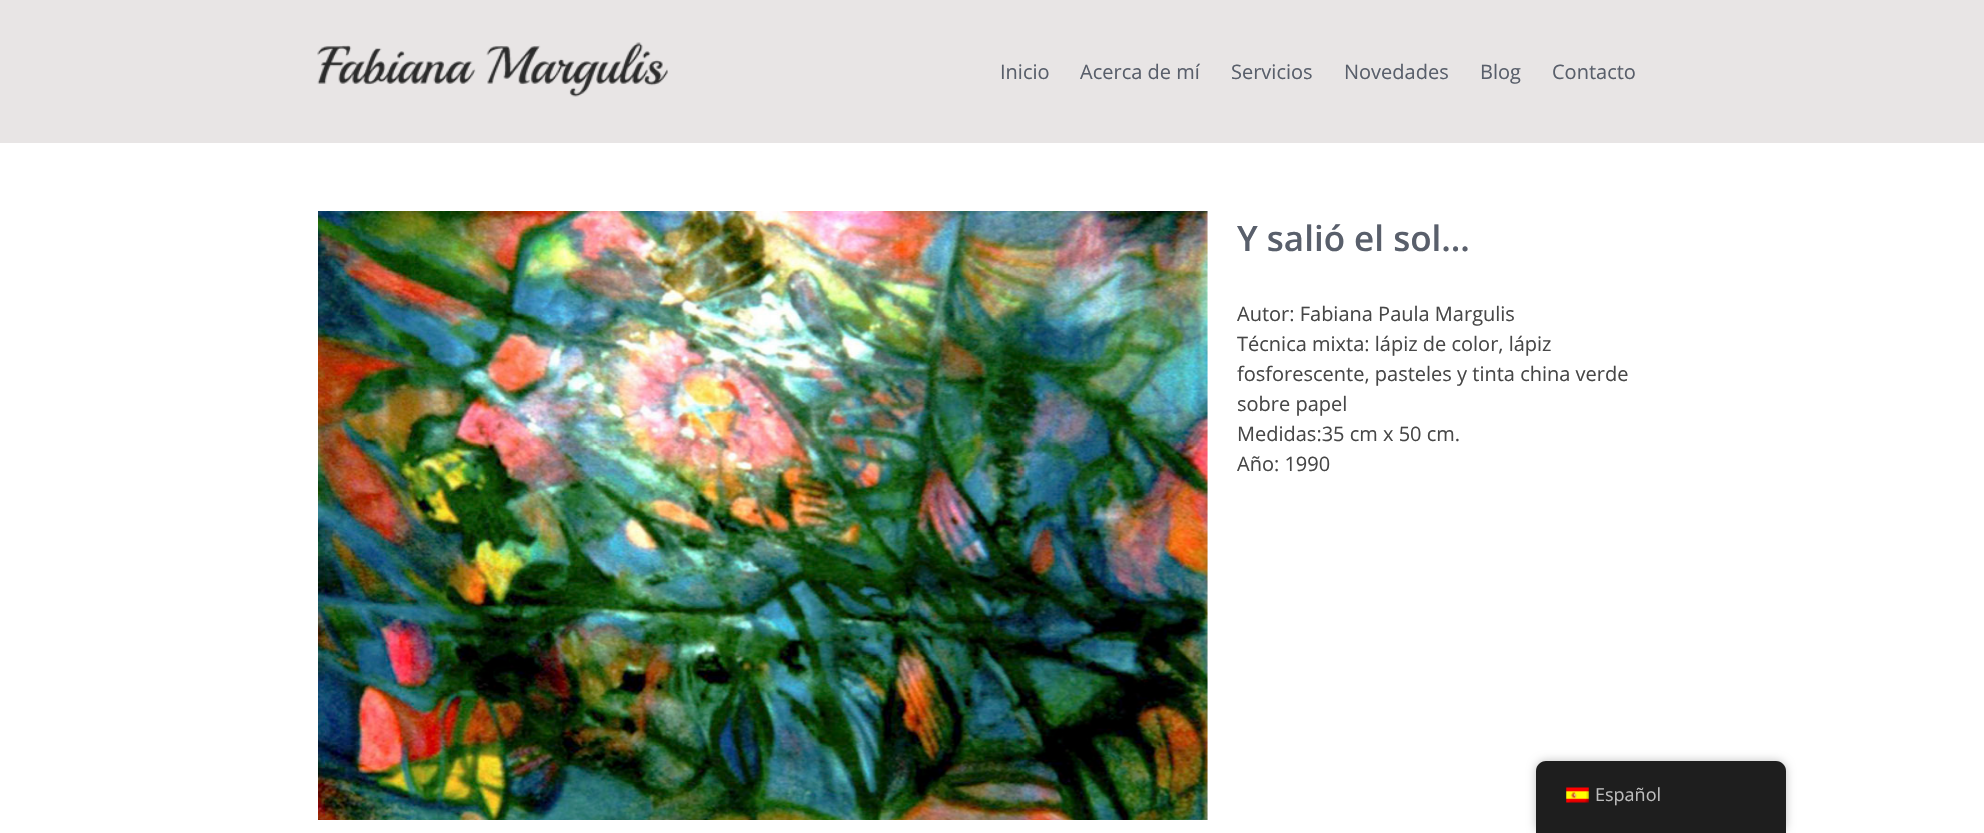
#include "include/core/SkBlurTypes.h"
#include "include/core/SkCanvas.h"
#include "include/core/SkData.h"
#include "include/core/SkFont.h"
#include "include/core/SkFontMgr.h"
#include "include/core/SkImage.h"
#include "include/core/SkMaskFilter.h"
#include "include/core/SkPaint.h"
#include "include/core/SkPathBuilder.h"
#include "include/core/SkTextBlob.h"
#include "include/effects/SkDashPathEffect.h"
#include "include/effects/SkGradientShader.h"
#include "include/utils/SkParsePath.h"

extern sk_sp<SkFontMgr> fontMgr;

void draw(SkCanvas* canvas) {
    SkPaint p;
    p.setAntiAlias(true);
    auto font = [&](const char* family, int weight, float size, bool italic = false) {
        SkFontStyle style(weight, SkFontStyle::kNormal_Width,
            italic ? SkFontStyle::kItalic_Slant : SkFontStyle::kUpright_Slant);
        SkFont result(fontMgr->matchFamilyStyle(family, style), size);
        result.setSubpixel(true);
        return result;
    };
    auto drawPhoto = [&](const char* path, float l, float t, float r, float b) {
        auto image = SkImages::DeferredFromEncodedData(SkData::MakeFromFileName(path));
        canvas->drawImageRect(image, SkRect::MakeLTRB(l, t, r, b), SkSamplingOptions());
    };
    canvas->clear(0xFFFFFFFF);
    p.setColor(0xFFE8E5E5);
    canvas->drawRect(SkRect::MakeLTRB(0, 0, 1984, 143), p);
    drawPhoto("media/1.png", 317, 42, 668, 97);
    auto font1 = font("Open Sans", 400, 20);
    p.setColor(0xFF595F6B);
    {
        const struct { const char* s; float x, y; } items[] = {
            {"Inicio", 1000, 79},
            {"Acerca de mí", 1080, 79},
            {"Servicios", 1231, 79},
            {"Novedades", 1344, 79},
            {"Blog", 1480, 79},
            {"Contacto", 1552, 79},
        };
        for (auto [s, x, y] : items) {
            canvas->drawString(s, x, y, font1, p);
        }
    }
    drawPhoto("media/2.png", 318, 211, 1208, 820);
    auto font2 = font("Open Sans", 600, 35);
    canvas->drawString("Y salió el sol…", 1237, 251, font2, p);
    p.setColor(0xFF474747);
    {
        const struct { const char* s; float x, y; } items[] = {
            {"Autor: Fabiana Paula Margulis", 1237, 321},
            {"Técnica mixta: lápiz de color, lápiz", 1237, 351},
            {"fosforescente, pasteles y tinta china verde", 1237, 381},
            {"sobre papel", 1237, 411},
            {"Medidas:35 cm x 50 cm.", 1237, 441},
            {"Año: 1990", 1237, 471},
        };
        for (auto [s, x, y] : items) {
            canvas->drawString(s, x, y, font1, p);
        }
    }
    p.setColor(0x40000000);
    p.setMaskFilter(SkMaskFilter::MakeBlur(kNormal_SkBlurStyle, 5));
    canvas->drawRoundRect(SkRect::MakeLTRB(1536, 761, 1786, 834), 10, 10, p);
    p.setMaskFilter(nullptr);
    p.setColor(0xFF1E1E1E);
    canvas->drawPath(SkPathBuilder().moveTo(1546, 761).lineTo(1776, 761).cubicTo(1781.5f, 761, 1786, 765.5f, 1786, 771).lineTo(1786, 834).lineTo(1536, 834).lineTo(1536, 771).cubicTo(1536, 765.5f, 1540.5f, 761, 1546, 761).close().detach(), p);
    drawPhoto("media/3.png", 1566, 787, 1589, 803);
    auto font3 = font("Open Sans", 400, 18);
    p.setColor(0xFFBDBDBD);
    canvas->drawString("Español", 1595, 801, font3, p);
}
